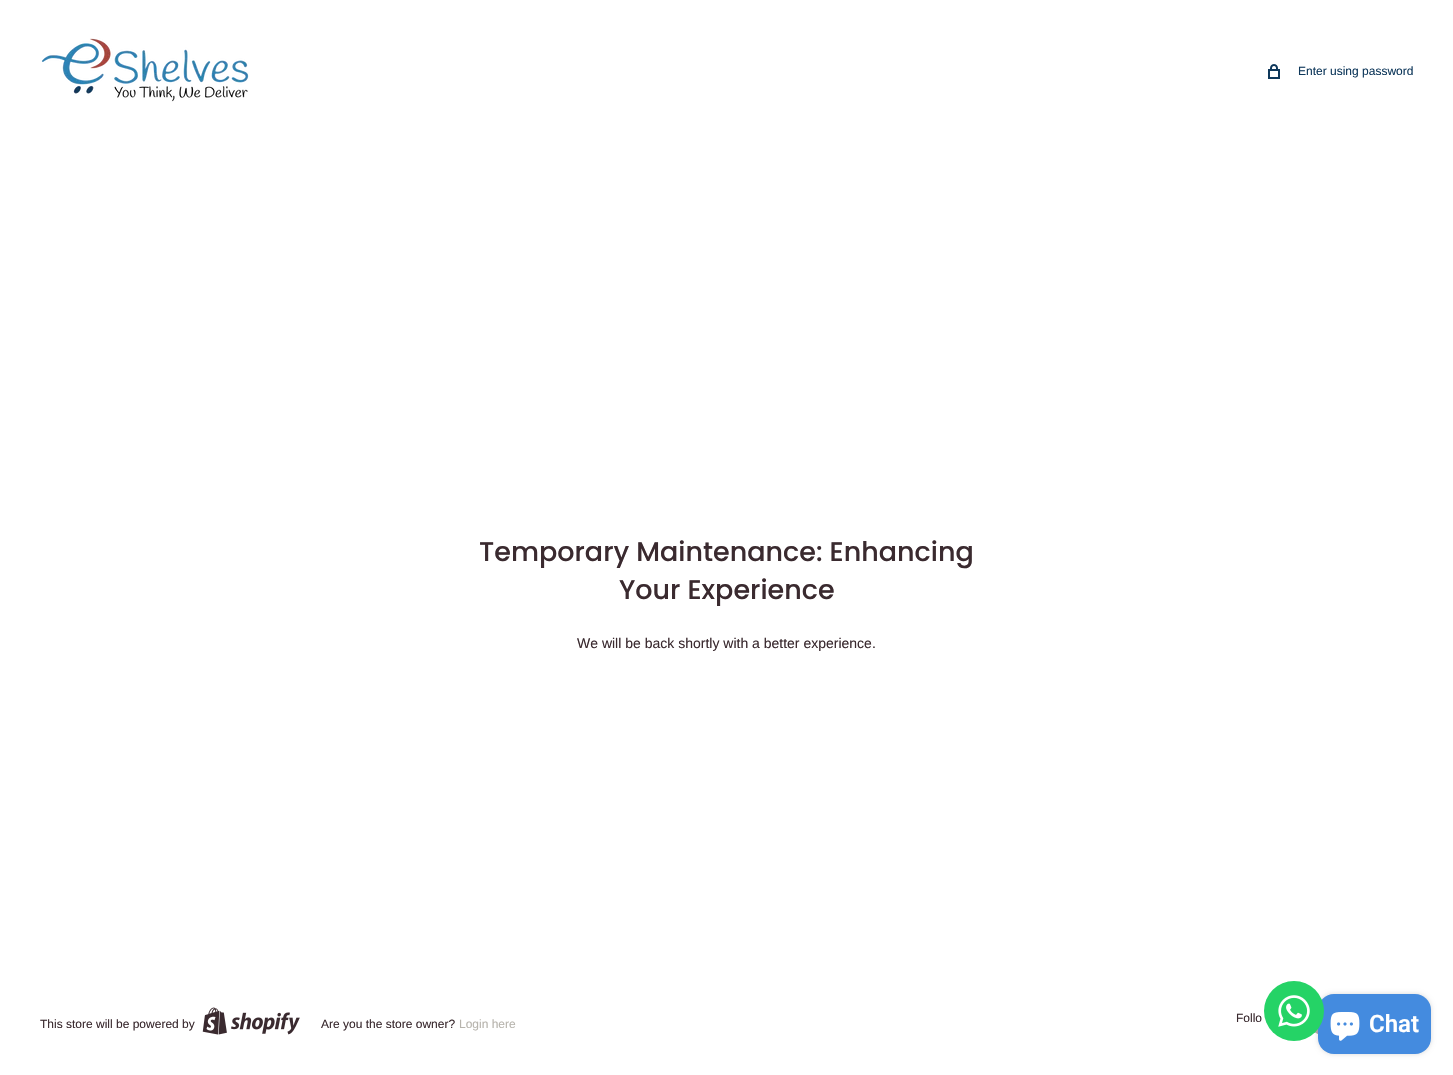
#include "include/core/SkBlurTypes.h"
#include "include/core/SkCanvas.h"
#include "include/core/SkData.h"
#include "include/core/SkFont.h"
#include "include/core/SkFontMgr.h"
#include "include/core/SkImage.h"
#include "include/core/SkMaskFilter.h"
#include "include/core/SkPaint.h"
#include "include/core/SkPathBuilder.h"
#include "include/core/SkTextBlob.h"
#include "include/effects/SkDashPathEffect.h"
#include "include/effects/SkGradientShader.h"
#include "include/utils/SkParsePath.h"

extern sk_sp<SkFontMgr> fontMgr;

void draw(SkCanvas* canvas) {
    SkPaint p;
    p.setAntiAlias(true);
    auto font = [&](const char* family, int weight, float size, bool italic = false) {
        SkFontStyle style(weight, SkFontStyle::kNormal_Width,
            italic ? SkFontStyle::kItalic_Slant : SkFontStyle::kUpright_Slant);
        SkFont result(fontMgr->matchFamilyStyle(family, style), size);
        result.setSubpixel(true);
        return result;
    };
    auto drawPhoto = [&](const char* path, float l, float t, float r, float b) {
        auto image = SkImages::DeferredFromEncodedData(SkData::MakeFromFileName(path));
        canvas->drawImageRect(image, SkRect::MakeLTRB(l, t, r, b), SkSamplingOptions());
    };
    canvas->clear(0xFFFFFFFF);
    drawPhoto("media/1.png", 41, 38, 249, 102);
    drawPhoto("media/2.png", 1268, 64, 1280, 79);
    auto font1 = font("Arimo", 400, 12);
    p.setColor(0xFF0F385B);
    canvas->drawString("Enter using password", 1298, 75, font1, p);
    auto font2 = font("Poppins", 500, 27);
    p.setColor(0xFF3A2A2F);
    canvas->drawString("Temporary Maintenance: Enhancing", 479, 561, font2, p);
    canvas->drawString("Your Experience", 619, 599, font2, p);
    auto font3 = font("Arimo", 400, 14);
    canvas->drawString("We will be back shortly with a better experience.", 577, 648, font3, p);
    canvas->drawString("Follo", 1236, 1022, font1, p);
    drawPhoto("media/3.png", 1314, 1029, 1318, 1034);
    canvas->drawString("This store will be powered by", 40, 1028, font1, p);
    drawPhoto("media/4.png", 202, 1007, 300, 1035);
    canvas->drawString("Are you the store owner?", 321, 1028, font1, p);
    p.setColor(0xFFB7B4AD);
    canvas->drawString("Login here", 459, 1028, font1, p);
    p.setColor(0x26000000);
    p.setMaskFilter(SkMaskFilter::MakeBlur(kNormal_SkBlurStyle, 2.5f));
    canvas->drawRoundRect(SkRect::MakeLTRB(1318, 994, 1431, 1054), 16, 16, p);
    p.setMaskFilter(nullptr);
    p.setColor(0xFF448BDF);
    canvas->drawRoundRect(SkRect::MakeLTRB(1318, 994, 1431, 1054), 16, 16, p);
    p.setColor(0xFF25D366);
    canvas->drawCircle(1294, 1011, 30, p);
    drawPhoto("media/5.png", 1278, 995, 1310, 1027);
    drawPhoto("media/6.png", 1330, 1012, 1360, 1041);
    auto font4 = font("Roboto", 600, 24);
    p.setColor(0xFFFFFFFF);
    canvas->drawString("Chat", 1369, 1032, font4, p);
}
